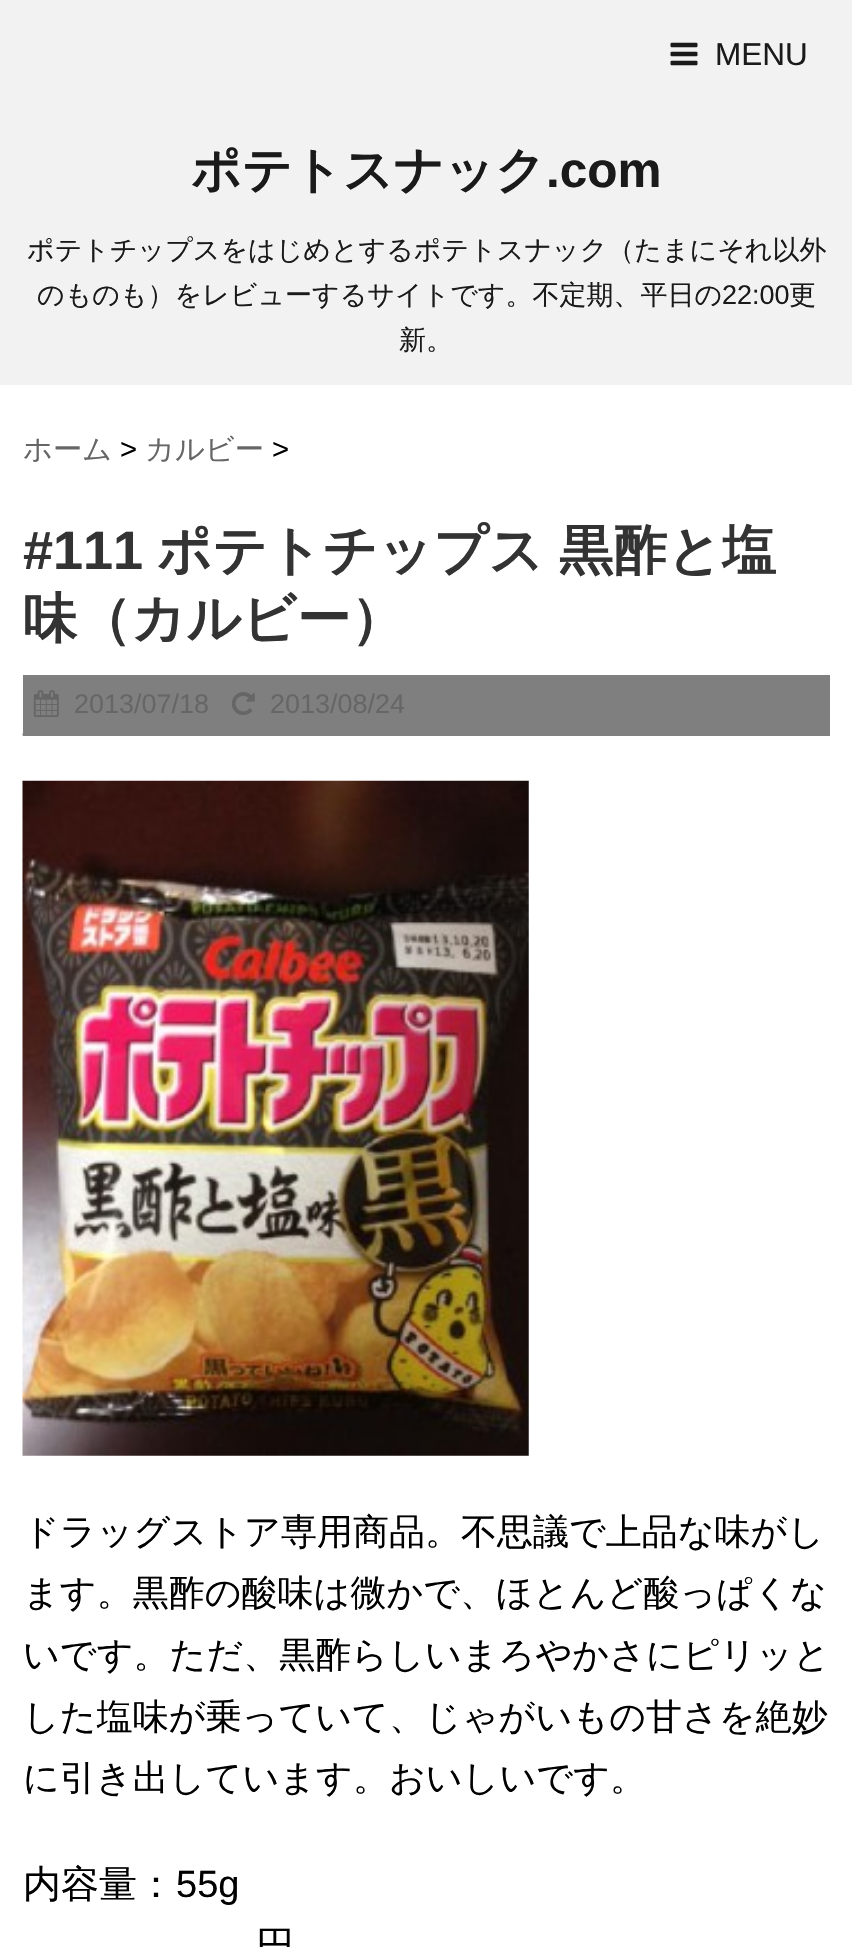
#include "include/core/SkBlurTypes.h"
#include "include/core/SkCanvas.h"
#include "include/core/SkData.h"
#include "include/core/SkFont.h"
#include "include/core/SkFontMgr.h"
#include "include/core/SkImage.h"
#include "include/core/SkMaskFilter.h"
#include "include/core/SkPaint.h"
#include "include/core/SkPathBuilder.h"
#include "include/core/SkTextBlob.h"
#include "include/effects/SkDashPathEffect.h"
#include "include/effects/SkGradientShader.h"
#include "include/utils/SkParsePath.h"

extern sk_sp<SkFontMgr> fontMgr;

void draw(SkCanvas* canvas) {
    SkPaint p;
    p.setAntiAlias(true);
    auto font = [&](const char* family, int weight, float size, bool italic = false) {
        SkFontStyle style(weight, SkFontStyle::kNormal_Width,
            italic ? SkFontStyle::kItalic_Slant : SkFontStyle::kUpright_Slant);
        SkFont result(fontMgr->matchFamilyStyle(family, style), size);
        result.setSubpixel(true);
        return result;
    };
    auto drawTracked = [&](const char* s, float x, float y, const SkFont& font, const SkPaint& ink, float letter, float word) {
        std::vector<SkGlyphID> glyphs(font.countText(s, strlen(s), SkTextEncoding::kUTF8));
        std::vector<float> xs(glyphs.size());
        font.textToGlyphs(s, strlen(s), SkTextEncoding::kUTF8, glyphs);
        font.getXPos(glyphs, xs, x);
        float extra = 0;
        for (size_t i = 0; i < glyphs.size(); i++) {
            xs[i] += extra;
            extra += letter + word * (glyphs[i] == font.unicharToGlyph(' '));
        }
        canvas->drawTextBlob(SkTextBlob::MakeFromPosHGlyphs(glyphs, xs, y, font), 0, 0, ink);
    };
    auto drawPhoto = [&](const char* path, float l, float t, float r, float b) {
        auto image = SkImages::DeferredFromEncodedData(SkData::MakeFromFileName(path));
        canvas->drawImageRect(image, SkRect::MakeLTRB(l, t, r, b), SkSamplingOptions());
    };
    canvas->clear(0xFFF2F2F2);
    drawPhoto("media/1.png", 670, 42, 698, 66);
    auto font1 = font("Liberation Sans", 400, 31.5f);
    p.setColor(0xFF1A1A1A);
    canvas->drawString("MENU", 715, 65, font1, p);
    auto font2 = font("WenQuanYi Zen Hei", 700, 49.5f);
    canvas->drawString("ポテトスナック", 191, 187, font2, p);
    auto font3 = font("Liberation Sans", 700, 49.5f);
    canvas->drawString(".com", 546, 187, font3, p);
    auto font4 = font("WenQuanYi Zen Hei", 500, 27);
    canvas->drawString("ポテトチップスをはじめとするポテトスナック（たまにそれ以外", 27, 259, font4, p);
    canvas->drawString("のものも）をレビューするサイトです。不定期、平日の", 37, 304, font4, p);
    auto font5 = font("Liberation Sans", 400, 27);
    canvas->drawString("22:00", 722, 304, font5, p);
    canvas->drawString("更", 789, 304, font4, p);
    canvas->drawString("新。", 399, 349, font4, p);
    p.setColor(0xFFFFFFFF);
    canvas->drawRect(SkRect::MakeLTRB(0, 385, 852, 1947), p);
    auto font6 = font("WenQuanYi Zen Hei", 500, 29.25f);
    p.setColor(0xFF666666);
    canvas->drawString("ホーム", 23, 459, font6, p);
    auto font7 = font("Liberation Sans", 400, 29.25f);
    p.setColor(0xFF000000);
    canvas->drawString(">", 120, 459, font7, p);
    p.setColor(0xFF666666);
    canvas->drawString("カルビー", 145, 459, font6, p);
    p.setColor(0xFF000000);
    canvas->drawString(">", 272, 459, font7, p);
    auto font8 = font("Liberation Sans", 700, 54);
    p.setColor(0xFF333333);
    canvas->drawString("#111", 23, 569, font8, p);
    auto font9 = font("WenQuanYi Zen Hei", 700, 54);
    drawTracked("ポテトチップス 黒酢と塩", 157, 569, font9, p, 0, -1);
    canvas->drawString("味（カルビー）", 23, 637, font9, p);
    p.setColor(0xFF7F7F7F);
    canvas->drawRect(SkRect::MakeLTRB(23, 675, 830, 736), p);
    p.setStyle(SkPaint::kStroke_Style);
    p.setStrokeWidth(2.2f);
    p.setPathEffect(SkDashPathEffect::Make({{2.25f, 2.25f}}, 0));
    canvas->drawPath(SkPathBuilder().moveTo(22.5f, 734.5f).lineTo(830, 734.5f).detach(), p);
    p.setPathEffect(nullptr);
    drawPhoto("media/2.png", 33, 690, 59, 717);
    p.setStyle(SkPaint::kFill_Style);
    p.setColor(0xFF666666);
    canvas->drawString("2013/07/18", 74, 713, font5, p);
    drawPhoto("media/3.png", 231, 692, 255, 715);
    canvas->drawString("2013/08/24", 270, 713, font5, p);
    drawPhoto("media/4.png", 22, 780, 529, 1456);
    auto font10 = font("WenQuanYi Zen Hei", 500, 36);
    p.setColor(0xFF000000);
    {
        const struct { const char* s; float x, y; } items[] = {
            {"ドラッグストア専用商品。不思議で上品な味がし", 23, 1544},
            {"ます。黒酢の酸味は微かで、ほとんど酸っぱくな", 23, 1605},
            {"いです。ただ、黒酢らしいまろやかさにピリッと", 23, 1667},
            {"した塩味が乗っていて、じゃがいもの甘さを絶妙", 23, 1729},
            {"に引き出しています。おいしいです。", 23, 1790},
        };
        for (auto [s, x, y] : items) {
            canvas->drawString(s, x, y, font10, p);
        }
    }
    auto font11 = font("WenQuanYi Zen Hei", 500, 38);
    canvas->drawString("内容量：", 23, 1897, font11, p);
    auto font12 = font("Liberation Sans", 400, 38);
    canvas->drawString("55g", 176, 1897, font12, p);
    canvas->drawString("円", 256, 1958, font11, p);
}
